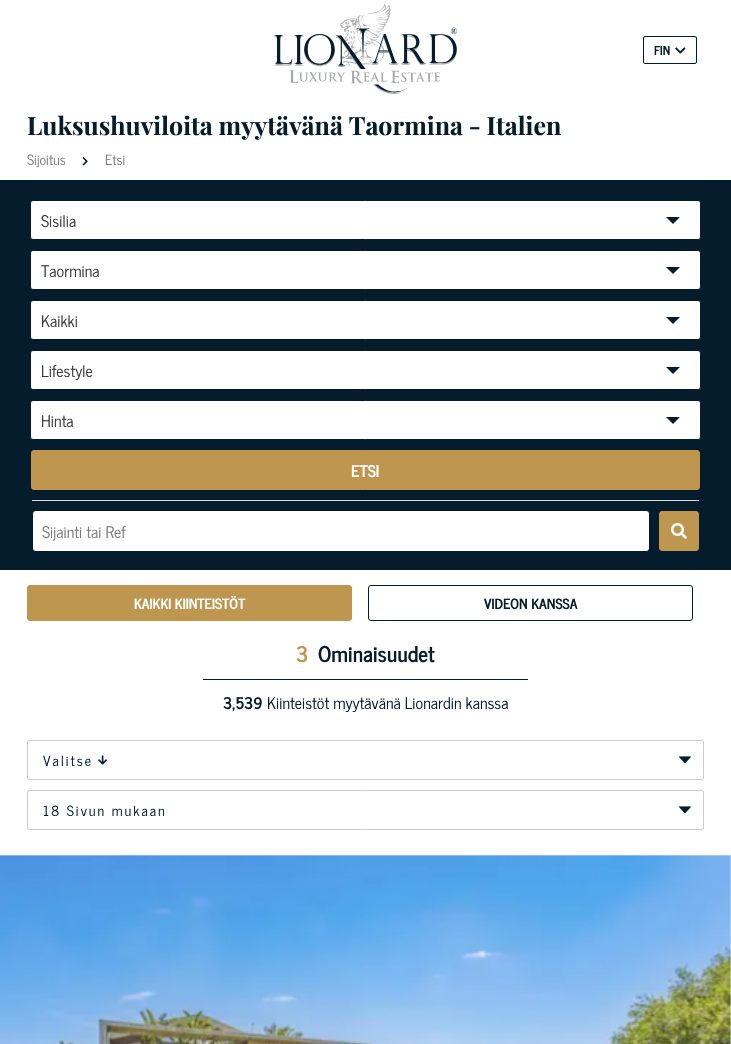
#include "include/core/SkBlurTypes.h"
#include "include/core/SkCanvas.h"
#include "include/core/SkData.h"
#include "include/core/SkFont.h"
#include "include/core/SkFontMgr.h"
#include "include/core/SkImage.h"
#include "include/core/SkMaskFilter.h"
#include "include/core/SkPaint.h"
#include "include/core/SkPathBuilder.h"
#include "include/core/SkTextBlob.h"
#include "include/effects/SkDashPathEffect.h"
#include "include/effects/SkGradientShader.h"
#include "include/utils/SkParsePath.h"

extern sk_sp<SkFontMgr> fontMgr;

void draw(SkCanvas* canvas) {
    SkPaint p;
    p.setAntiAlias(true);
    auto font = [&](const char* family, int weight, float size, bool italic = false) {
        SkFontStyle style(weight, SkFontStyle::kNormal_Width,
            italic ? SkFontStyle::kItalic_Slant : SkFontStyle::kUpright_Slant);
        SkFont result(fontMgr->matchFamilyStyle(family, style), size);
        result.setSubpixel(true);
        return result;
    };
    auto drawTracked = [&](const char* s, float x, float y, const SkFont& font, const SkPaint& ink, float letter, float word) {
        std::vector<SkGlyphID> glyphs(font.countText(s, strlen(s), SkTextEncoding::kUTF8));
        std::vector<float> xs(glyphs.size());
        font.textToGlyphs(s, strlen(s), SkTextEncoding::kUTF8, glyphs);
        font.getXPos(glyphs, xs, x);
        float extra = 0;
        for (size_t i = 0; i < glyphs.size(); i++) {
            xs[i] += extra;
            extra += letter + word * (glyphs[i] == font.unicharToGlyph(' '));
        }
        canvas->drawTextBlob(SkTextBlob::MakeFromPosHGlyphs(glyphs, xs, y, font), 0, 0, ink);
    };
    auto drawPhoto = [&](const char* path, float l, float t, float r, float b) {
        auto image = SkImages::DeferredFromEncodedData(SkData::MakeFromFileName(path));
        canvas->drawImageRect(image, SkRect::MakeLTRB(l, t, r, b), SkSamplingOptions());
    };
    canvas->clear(0xFFFFFFFF);
    drawPhoto("media/1.png", 274, 4, 457, 94);
    p.setStyle(SkPaint::kStroke_Style);
    p.setStrokeWidth(1);
    p.setColor(0xFF051C2C);
    canvas->drawRoundRect(SkRect::MakeLTRB(643.5f, 36.5f, 696.5f, 63.5f), 1.5f, 1.5f, p);
    auto font1 = font("News Cycle", 700, 12);
    p.setStyle(SkPaint::kFill_Style);
    canvas->drawString("FIN", 654, 55, font1, p);
    drawPhoto("media/2.png", 675, 47, 686, 54);
    auto font2 = font("Playfair Display", 700, 25);
    canvas->drawString("Luksushuviloita myytävänä Taormina - Italien", 27, 135, font2, p);
    auto font3 = font("News Cycle", 400, 14);
    p.setColor(0xFF797979);
    canvas->drawString("Sijoitus", 27, 165, font3, p);
    drawPhoto("media/3.png", 82, 157, 88, 166);
    canvas->drawString("Etsi", 105, 165, font3, p);
    p.setColor(0xFF051C2C);
    canvas->drawRect(SkRect::MakeLTRB(0, 180, 731, 570), p);
    p.setColor(0xFFFFFFFF);
    canvas->drawRoundRect(SkRect::MakeLTRB(30.5f, 200.5f, 700.5f, 239.5f), 2.5f, 2.5f, p);
    p.setStyle(SkPaint::kStroke_Style);
    p.setColor(0xFF051C2C);
    canvas->drawRoundRect(SkRect::MakeLTRB(30.5f, 200.5f, 700.5f, 239.5f), 2.5f, 2.5f, p);
    auto font4 = font("News Cycle", 400, 16);
    p.setStyle(SkPaint::kFill_Style);
    p.setColor(0xFF373737);
    canvas->drawString("Sisilia", 41, 227, font4, p);
    p.setColor(0xFF051C2C);
    canvas->drawPath(SkPathBuilder().moveTo(666, 217).lineTo(680, 217).lineTo(673, 224).close().detach(), p);
    p.setColor(0xFFFFFFFF);
    canvas->drawRoundRect(SkRect::MakeLTRB(30.5f, 250.5f, 700.5f, 289.5f), 2.5f, 2.5f, p);
    p.setStyle(SkPaint::kStroke_Style);
    p.setColor(0xFF051C2C);
    canvas->drawRoundRect(SkRect::MakeLTRB(30.5f, 250.5f, 700.5f, 289.5f), 2.5f, 2.5f, p);
    p.setStyle(SkPaint::kFill_Style);
    p.setColor(0xFF373737);
    canvas->drawString("Taormina", 41, 277, font4, p);
    p.setColor(0xFF051C2C);
    canvas->drawPath(SkPathBuilder().moveTo(666, 267).lineTo(680, 267).lineTo(673, 274).close().detach(), p);
    p.setColor(0xFFFFFFFF);
    canvas->drawRoundRect(SkRect::MakeLTRB(30.5f, 300.5f, 700.5f, 339.5f), 2.5f, 2.5f, p);
    p.setStyle(SkPaint::kStroke_Style);
    p.setColor(0xFF051C2C);
    canvas->drawRoundRect(SkRect::MakeLTRB(30.5f, 300.5f, 700.5f, 339.5f), 2.5f, 2.5f, p);
    p.setStyle(SkPaint::kFill_Style);
    p.setColor(0xFF373737);
    canvas->drawString("Kaikki", 41, 327, font4, p);
    p.setColor(0xFF051C2C);
    canvas->drawPath(SkPathBuilder().moveTo(666, 317).lineTo(680, 317).lineTo(673, 324).close().detach(), p);
    p.setColor(0xFFFFFFFF);
    canvas->drawRoundRect(SkRect::MakeLTRB(30.5f, 350.5f, 700.5f, 389.5f), 2.5f, 2.5f, p);
    p.setStyle(SkPaint::kStroke_Style);
    p.setColor(0xFF051C2C);
    canvas->drawRoundRect(SkRect::MakeLTRB(30.5f, 350.5f, 700.5f, 389.5f), 2.5f, 2.5f, p);
    p.setStyle(SkPaint::kFill_Style);
    p.setColor(0xFF373737);
    canvas->drawString("Lifestyle", 41, 377, font4, p);
    p.setColor(0xFF051C2C);
    canvas->drawPath(SkPathBuilder().moveTo(666, 367).lineTo(680, 367).lineTo(673, 374).close().detach(), p);
    p.setColor(0xFFFFFFFF);
    canvas->drawRoundRect(SkRect::MakeLTRB(30.5f, 400.5f, 700.5f, 439.5f), 2.5f, 2.5f, p);
    p.setStyle(SkPaint::kStroke_Style);
    p.setColor(0xFF051C2C);
    canvas->drawRoundRect(SkRect::MakeLTRB(30.5f, 400.5f, 700.5f, 439.5f), 2.5f, 2.5f, p);
    p.setStyle(SkPaint::kFill_Style);
    p.setColor(0xFF373737);
    canvas->drawString("Hinta", 41, 427, font4, p);
    p.setColor(0xFF051C2C);
    canvas->drawPath(SkPathBuilder().moveTo(666, 417).lineTo(680, 417).lineTo(673, 424).close().detach(), p);
    p.setColor(0xFFBE964F);
    canvas->drawRoundRect(SkRect::MakeLTRB(31.5f, 450.5f, 699.5f, 489.5f), 2.5f, 2.5f, p);
    p.setStyle(SkPaint::kStroke_Style);
    canvas->drawRoundRect(SkRect::MakeLTRB(31.5f, 450.5f, 699.5f, 489.5f), 2.5f, 2.5f, p);
    auto font5 = font("News Cycle", 700, 16);
    p.setStyle(SkPaint::kFill_Style);
    p.setColor(0xFFFFFFFF);
    canvas->drawString("ETSI", 351, 477, font5, p);
    p.setColor(0xFFDBDBDB);
    canvas->drawRect(SkRect::MakeLTRB(32, 500, 699, 501), p);
    p.setColor(0xFFFFFFFF);
    canvas->drawRoundRect(SkRect::MakeLTRB(33, 511, 649, 551), 3, 3, p);
    p.setColor(0xFF797979);
    canvas->drawString("Sijainti tai Ref", 42, 538, font4, p);
    p.setColor(0xFFBE964F);
    canvas->drawRoundRect(SkRect::MakeLTRB(659.5f, 511.5f, 698.5f, 550.5f), 2.5f, 2.5f, p);
    p.setStyle(SkPaint::kStroke_Style);
    canvas->drawRoundRect(SkRect::MakeLTRB(659.5f, 511.5f, 698.5f, 550.5f), 2.5f, 2.5f, p);
    drawPhoto("media/4.png", 671, 523, 687, 539);
    p.setStyle(SkPaint::kFill_Style);
    canvas->drawRoundRect(SkRect::MakeLTRB(27.5f, 585.5f, 351.5f, 620.5f), 2.5f, 2.5f, p);
    p.setStyle(SkPaint::kStroke_Style);
    canvas->drawRoundRect(SkRect::MakeLTRB(27.5f, 585.5f, 351.5f, 620.5f), 2.5f, 2.5f, p);
    auto font6 = font("News Cycle", 700, 14);
    p.setStyle(SkPaint::kFill_Style);
    p.setColor(0xFFFFFFFF);
    canvas->drawString("KAIKKI KIINTEISTÖT", 134, 609, font6, p);
    p.setStyle(SkPaint::kStroke_Style);
    p.setColor(0xFF051C2C);
    canvas->drawRoundRect(SkRect::MakeLTRB(368.5f, 585.5f, 692.5f, 620.5f), 2.5f, 2.5f, p);
    p.setStyle(SkPaint::kFill_Style);
    canvas->drawString("VIDEON KANSSA", 484, 609, font6, p);
    auto font7 = font("News Cycle", 700, 21.5f);
    p.setColor(0xFFBE964F);
    canvas->drawString("3", 296, 662, font7, p);
    p.setColor(0xFF051C2C);
    canvas->drawString("Ominaisuudet", 318, 662, font7, p);
    canvas->drawRect(SkRect::MakeLTRB(203, 679, 528, 680), p);
    canvas->drawString("3,539", 223, 709, font5, p);
    canvas->drawString("Kiinteistöt myytävänä Lionardin kanssa", 267, 709, font4, p);
    drawPhoto("media/5.png", 679, 756, 691, 763);
    p.setStyle(SkPaint::kStroke_Style);
    p.setColor(0xFFCCCCCC);
    canvas->drawRoundRect(SkRect::MakeLTRB(27.5f, 740.5f, 703.5f, 779.5f), 1.5f, 1.5f, p);
    p.setStyle(SkPaint::kFill_Style);
    p.setColor(0xFF051C2C);
    drawTracked("Valitse", 43, 766, font3, p, 2, 0);
    drawPhoto("media/6.png", 98, 755, 107, 765);
    drawPhoto("media/5.png", 679, 806, 691, 813);
    p.setStyle(SkPaint::kStroke_Style);
    p.setColor(0xFFCCCCCC);
    canvas->drawRoundRect(SkRect::MakeLTRB(27.5f, 790.5f, 703.5f, 829.5f), 1.5f, 1.5f, p);
    p.setStyle(SkPaint::kFill_Style);
    p.setColor(0xFF051C2C);
    drawTracked("18 Sivun mukaan", 43, 816, font3, p, 2, 0);
    drawPhoto("media/7.png", 61, 855, 731, 1044);
    drawPhoto("media/8.png", 0, 855, 731, 1044);
}
